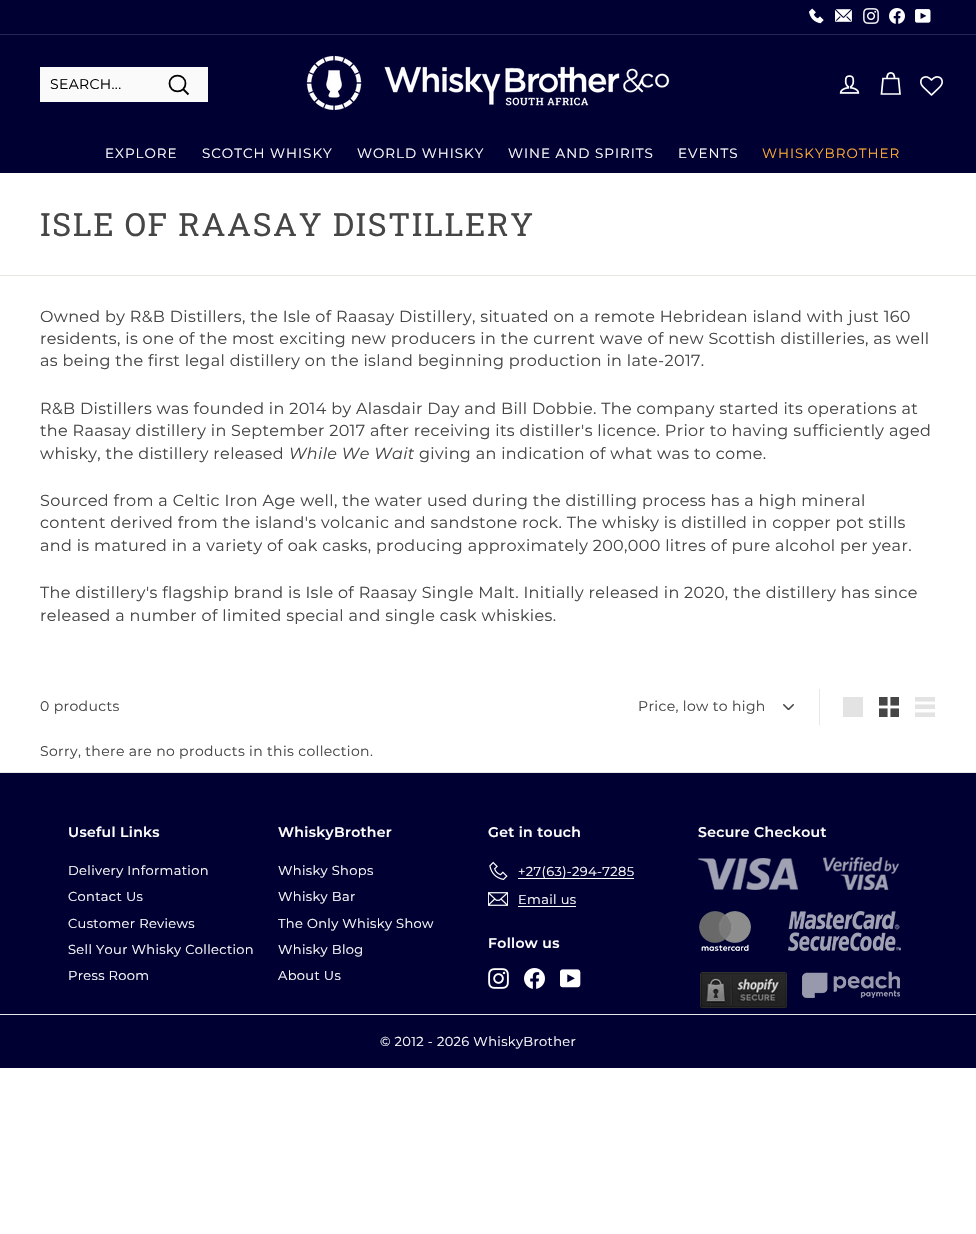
#include "include/core/SkBlurTypes.h"
#include "include/core/SkCanvas.h"
#include "include/core/SkData.h"
#include "include/core/SkFont.h"
#include "include/core/SkFontMgr.h"
#include "include/core/SkImage.h"
#include "include/core/SkMaskFilter.h"
#include "include/core/SkPaint.h"
#include "include/core/SkPathBuilder.h"
#include "include/core/SkTextBlob.h"
#include "include/effects/SkDashPathEffect.h"
#include "include/effects/SkGradientShader.h"
#include "include/utils/SkParsePath.h"

extern sk_sp<SkFontMgr> fontMgr;

void draw(SkCanvas* canvas) {
    SkPaint p;
    p.setAntiAlias(true);
    auto font = [&](const char* family, int weight, float size, bool italic = false) {
        SkFontStyle style(weight, SkFontStyle::kNormal_Width,
            italic ? SkFontStyle::kItalic_Slant : SkFontStyle::kUpright_Slant);
        SkFont result(fontMgr->matchFamilyStyle(family, style), size);
        result.setSubpixel(true);
        return result;
    };
    auto drawTracked = [&](const char* s, float x, float y, const SkFont& font, const SkPaint& ink, float letter, float word) {
        std::vector<SkGlyphID> glyphs(font.countText(s, strlen(s), SkTextEncoding::kUTF8));
        std::vector<float> xs(glyphs.size());
        font.textToGlyphs(s, strlen(s), SkTextEncoding::kUTF8, glyphs);
        font.getXPos(glyphs, xs, x);
        float extra = 0;
        for (size_t i = 0; i < glyphs.size(); i++) {
            xs[i] += extra;
            extra += letter + word * (glyphs[i] == font.unicharToGlyph(' '));
        }
        canvas->drawTextBlob(SkTextBlob::MakeFromPosHGlyphs(glyphs, xs, y, font), 0, 0, ink);
    };
    auto drawPhoto = [&](const char* path, float l, float t, float r, float b) {
        auto image = SkImages::DeferredFromEncodedData(SkData::MakeFromFileName(path));
        canvas->drawImageRect(image, SkRect::MakeLTRB(l, t, r, b), SkSamplingOptions());
    };
    canvas->clear(0xFFFFFFFF);
    p.setColor(0xFF000033);
    canvas->drawRect(SkRect::MakeLTRB(0, 0, 976, 34), p);
    drawPhoto("media/1.png", 809, 8, 824, 24);
    drawPhoto("media/2.png", 835, 9, 852, 22);
    drawPhoto("media/3.png", 863, 8, 879, 24);
    drawPhoto("media/4.png", 889, 8, 905, 24);
    drawPhoto("media/5.png", 915, 9, 931, 23);
    {
        const struct { float l, t, r, b; SkColor color; } items[] = {
            {0, 34, 976, 35, 0xFF262652},
            {0, 35, 976, 173, 0xFF000033},
            {40, 67, 208, 102, 0xFFFAFAFA},
        };
        for (auto [l, t, r, b, color] : items) {
            p.setColor(color);
            canvas->drawRect(SkRect::MakeLTRB(l, t, r, b), p);
        }
    }
    auto font1 = font("Montserrat", 100, 14);
    p.setColor(0xFF000000);
    drawTracked("SEARCH...", 50, 89, font1, p, 0.35f, 0);
    p.setStyle(SkPaint::kStroke_Style);
    p.setStrokeWidth(1.8f);
    canvas->drawPath(SkPathBuilder().moveTo(185.5f, 83.5f).cubicTo(185.5f, 94, 169.5f, 94, 169.5f, 83.5f).cubicTo(169.5f, 73, 185.5f, 73, 185.5f, 83.5f).close().moveTo(188.5f, 94.5f).lineTo(183.5f, 89.5f).detach(), p);
    drawPhoto("media/6.png", 306, 55, 670, 110);
    drawPhoto("media/7.png", 839, 75, 860, 94);
    p.setStrokeWidth(1.7f);
    p.setColor(0xFFFFFFFF);
    canvas->drawPath(SkPathBuilder().moveTo(887, 78.5f).cubicTo(887, 71, 894.5f, 71, 894.5f, 78.5f).moveTo(883, 78.5f).lineTo(898.5f, 78.5f).lineTo(900, 94).lineTo(881.5f, 94).close().detach(), p);
    drawPhoto("media/8.png", 920, 76, 943, 96);
    auto font2 = font("Montserrat", 100, 13.5f);
    p.setStyle(SkPaint::kFill_Style);
    {
        const struct { const char* s; float x, y; } items[] = {
            {"EXPLORE", 105, 158},
            {"SCOTCH WHISKY", 202, 158},
            {"WORLD WHISKY", 357, 158},
            {"WINE AND SPIRITS", 508, 158},
            {"EVENTS", 678, 158},
        };
        for (auto [s, x, y] : items) {
            drawTracked(s, x, y, font2, p, 1, 0);
        }
    }
    p.setColor(0xFFFFAD33);
    drawTracked("WHISKYBROTHER", 762, 158, font2, p, 1, 0);
    auto font3 = font("Roboto Slab", 400, 32);
    p.setColor(0xFF464646);
    drawTracked("ISLE OF RAASAY DISTILLERY", 40, 236, font3, p, 1.6f, 0);
    p.setColor(0xFFE8E8E1);
    canvas->drawRect(SkRect::MakeLTRB(0, 275, 976, 276), p);
    auto font4 = font("Montserrat", 100, 16);
    p.setColor(0xFF464646);
    {
        const struct { const char* s; float x, y; } items[] = {
            {"Owned by R&B Distillers, the Isle of Raasay Distillery, situated on a remote Hebridean island with just 160", 40, 322},
            {"residents, is one of the most exciting new producers in the current wave of new Scottish distilleries, as well", 40, 344},
            {"as being the first legal distillery on the island beginning production in late-2017.", 40, 366},
            {"R&B Distillers was founded in 2014 by Alasdair Day and Bill Dobbie. The company started its operations at", 40, 414},
            {"the Raasay distillery in September 2017 after receiving its distiller's licence. Prior to having sufficiently aged", 40, 436},
            {"whisky, the distillery released", 40, 459},
        };
        for (auto [s, x, y] : items) {
            drawTracked(s, x, y, font4, p, 0.35f, 0);
        }
    }
    auto font5 = font("Montserrat", 400, 16, true);
    drawTracked("While We Wait", 289, 459, font5, p, 0.35f, 0);
    {
        const struct { const char* s; float x, y; } items[] = {
            {"giving an indication of what was to come.", 419, 459},
            {"Sourced from a Celtic Iron Age well, the water used during the distilling process has a high mineral", 40, 506},
            {"content derived from the island's volcanic and sandstone rock. The whisky is distilled in copper pot stills", 40, 528},
            {"and is matured in a variety of oak casks, producing approximately 200,000 litres of pure alcohol per year.", 40, 551},
            {"The distillery's flagship brand is Isle of Raasay Single Malt. Initially released in 2020, the distillery has since", 40, 598},
            {"released a number of limited special and single cask whiskies.", 40, 621},
        };
        for (auto [s, x, y] : items) {
            drawTracked(s, x, y, font4, p, 0.35f, 0);
        }
    }
    drawTracked("0 products", 40, 711, font1, p, 0.35f, 0);
    p.setColor(0xFFE8E8E1);
    canvas->drawRect(SkRect::MakeLTRB(819, 689, 820, 725), p);
    drawPhoto("media/9.png", 783, 704, 794, 710);
    p.setColor(0xFF464646);
    drawTracked("Price, low to high", 638, 711, font1, p, 0.35f, 0);
    p.setColor(0xFFE3E3E3);
    canvas->drawRect(SkRect::MakeLTRB(843, 697, 863, 717), p);
    drawPhoto("media/10.png", 879, 697, 899, 717);
    drawPhoto("media/11.png", 915, 697, 935, 717);
    p.setColor(0xFF464646);
    drawTracked("Sorry, there are no products in this collection.", 40, 756, font1, p, 0.35f, 0);
    p.setColor(0xFF000033);
    canvas->drawRect(SkRect::MakeLTRB(0, 773, 976, 1068), p);
    p.setColor(0xFFE7E7E7);
    canvas->drawRect(SkRect::MakeLTRB(0, 772, 976, 773), p);
    auto font6 = font("Montserrat", 600, 14);
    p.setColor(0xFFFFFFFF);
    drawTracked("Useful Links", 68, 837, font6, p, 0.35f, 0);
    auto font7 = font("Montserrat", 100, 13);
    {
        const struct { const char* s; float x, y; } items[] = {
            {"Delivery Information", 68, 875},
            {"Contact Us", 68, 901},
            {"Customer Reviews", 68, 928},
            {"Sell Your Whisky Collection", 68, 954},
            {"Press Room", 68, 980},
        };
        for (auto [s, x, y] : items) {
            drawTracked(s, x, y, font7, p, 0.35f, 0);
        }
    }
    drawTracked("WhiskyBrother", 278, 837, font6, p, 0.35f, 0);
    {
        const struct { const char* s; float x, y; } items[] = {
            {"Whisky Shops", 278, 875},
            {"Whisky Bar", 278, 901},
            {"The Only Whisky Show", 278, 928},
            {"Whisky Blog", 278, 954},
            {"About Us", 278, 980},
        };
        for (auto [s, x, y] : items) {
            drawTracked(s, x, y, font7, p, 0.35f, 0);
        }
    }
    drawTracked("Get in touch", 488, 837, font6, p, 0.35f, 0);
    drawPhoto("media/12.png", 489, 861, 508, 880);
    canvas->drawRect(SkRect::MakeLTRB(518, 878, 634, 879), p);
    drawTracked("+27(63)-294-7285", 518, 876, font7, p, 0.35f, 0);
    drawPhoto("media/13.png", 488, 892, 508, 906);
    drawTracked("Email us", 518, 904, font7, p, 0.35f, 0);
    canvas->drawRect(SkRect::MakeLTRB(518, 906, 576, 907), p);
    drawTracked("Follow us", 488, 948, font6, p, 0.35f, 0);
    drawPhoto("media/14.png", 488, 968, 509, 989);
    drawPhoto("media/15.png", 524, 968, 545, 989);
    drawPhoto("media/16.png", 560, 969, 581, 988);
    drawTracked("Secure Checkout", 698, 837, font6, p, 0.35f, 0);
    drawPhoto("media/17.png", 698, 857, 901, 1009);
    p.setColor(0xFFE7E7E7);
    canvas->drawRect(SkRect::MakeLTRB(0, 1014, 976, 1015), p);
    p.setColor(0xFFFFFFFF);
    drawTracked("© 2012 - 2026 WhiskyBrother", 380, 1046, font7, p, 0.35f, 0);
}
